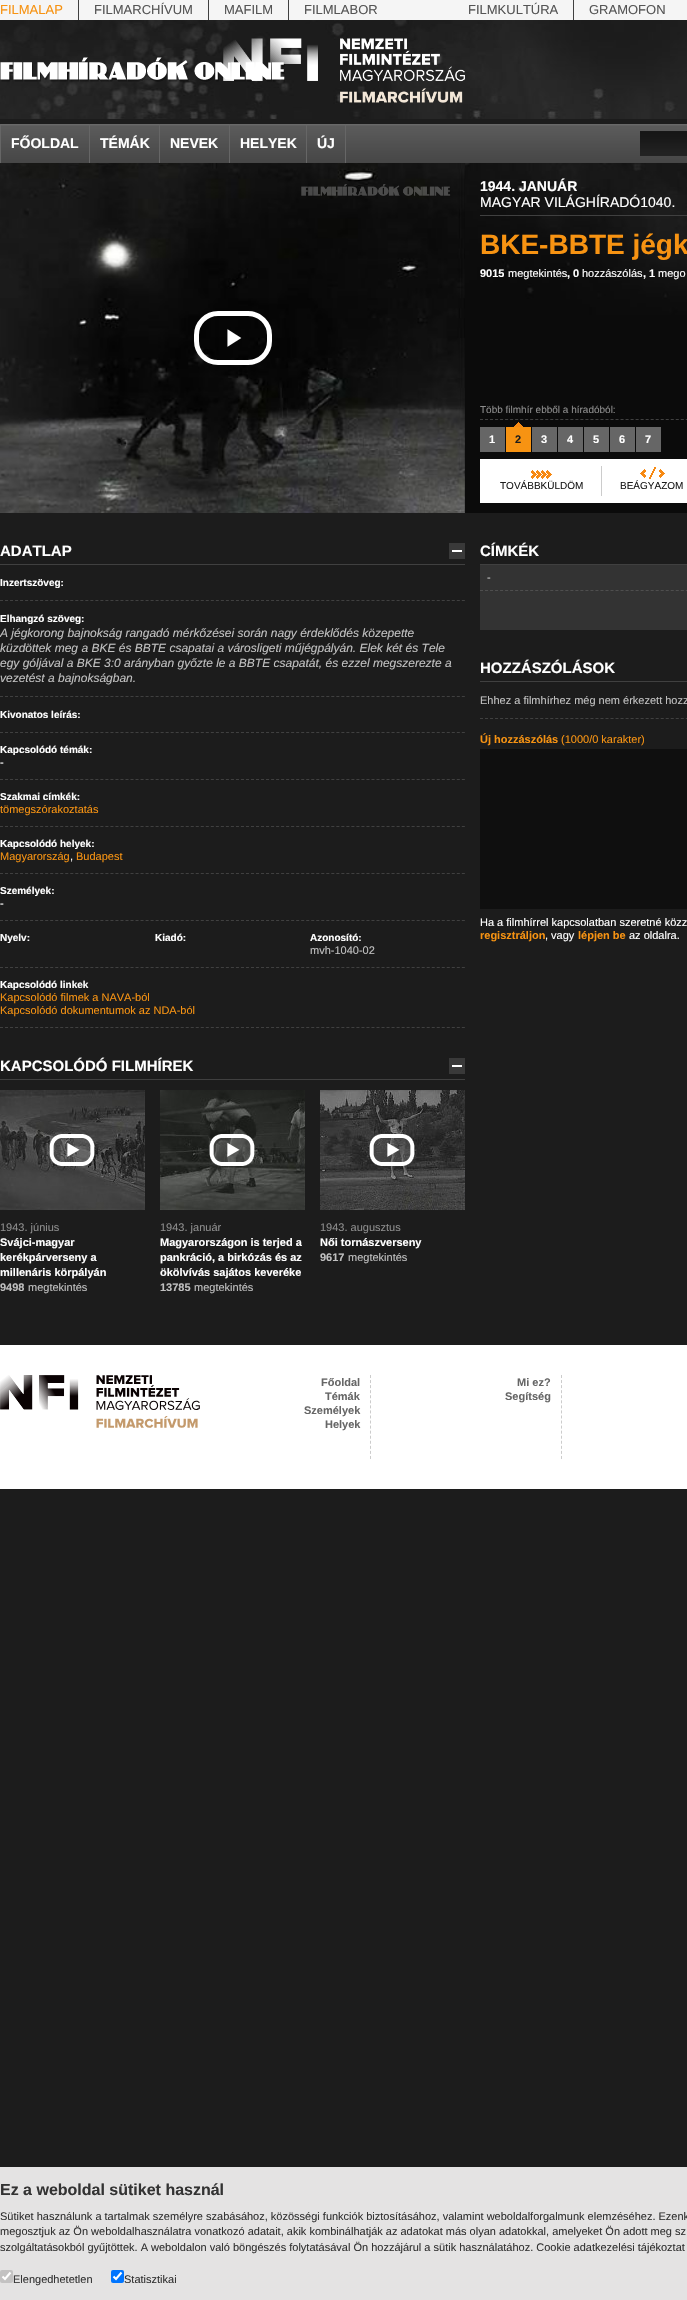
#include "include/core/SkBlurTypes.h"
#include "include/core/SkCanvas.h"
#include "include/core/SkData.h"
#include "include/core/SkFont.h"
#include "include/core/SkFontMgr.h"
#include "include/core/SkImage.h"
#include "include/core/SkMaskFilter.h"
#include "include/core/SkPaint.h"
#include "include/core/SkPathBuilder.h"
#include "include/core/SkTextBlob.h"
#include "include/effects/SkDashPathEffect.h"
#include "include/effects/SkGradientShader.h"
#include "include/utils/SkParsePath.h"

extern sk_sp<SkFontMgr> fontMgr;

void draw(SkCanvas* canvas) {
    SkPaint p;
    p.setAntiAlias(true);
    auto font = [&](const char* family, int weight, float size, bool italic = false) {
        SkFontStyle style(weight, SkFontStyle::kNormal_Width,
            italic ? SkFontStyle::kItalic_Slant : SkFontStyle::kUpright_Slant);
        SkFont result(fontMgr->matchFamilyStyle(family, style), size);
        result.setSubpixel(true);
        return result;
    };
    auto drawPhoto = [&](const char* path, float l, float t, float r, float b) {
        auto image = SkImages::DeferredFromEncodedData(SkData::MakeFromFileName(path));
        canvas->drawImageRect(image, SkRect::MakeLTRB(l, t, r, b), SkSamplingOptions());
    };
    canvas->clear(0xFF1C1C1C);
    drawPhoto("media/1.png", 0, 20, 687, 119);
    p.setColor(0xFFF5F5F5);
    canvas->drawRect(SkRect::MakeLTRB(0, 0, 687, 20), p);
    p.setColor(0xFF404040);
    canvas->drawRect(SkRect::MakeLTRB(78, 0, 79, 20), p);
    auto font1 = font("Liberation Sans", 400, 13);
    p.setColor(0xFFF79312);
    canvas->drawString("FILMALAP", 0, 14, font1, p);
    p.setColor(0xFF404040);
    canvas->drawRect(SkRect::MakeLTRB(208, 0, 209, 20), p);
    p.setColor(0xFF555555);
    canvas->drawString("FILMARCHÍVUM", 94, 14, font1, p);
    p.setColor(0xFF404040);
    canvas->drawRect(SkRect::MakeLTRB(288, 0, 289, 20), p);
    p.setColor(0xFF555555);
    canvas->drawString("MAFILM", 224, 14, font1, p);
    canvas->drawString("FILMLABOR", 304, 14, font1, p);
    p.setColor(0xFF404040);
    canvas->drawRect(SkRect::MakeLTRB(573, 0, 574, 20), p);
    p.setColor(0xFF555555);
    canvas->drawString("FILMKULTÚRA", 468, 14, font1, p);
    canvas->drawString("GRAMOFON", 589, 14, font1, p);
    drawPhoto("media/2.png", 0, 57, 285, 82);
    drawPhoto("media/3.png", 223, 38, 465, 103);
    drawPhoto("media/4.png", 1, 124, 687, 163);
    p.setColor(0xFF666666);
    canvas->drawRect(SkRect::MakeLTRB(0, 124, 1, 163), p);
    auto font2 = font("Liberation Sans", 700, 14);
    p.setColor(0xFFFFFFFF);
    canvas->drawString("FŐOLDAL", 11, 148, font2, p);
    p.setColor(0xFF666666);
    canvas->drawRect(SkRect::MakeLTRB(89, 124, 90, 163), p);
    p.setColor(0xFFFFFFFF);
    canvas->drawString("TÉMÁK", 100, 148, font2, p);
    p.setColor(0xFF666666);
    canvas->drawRect(SkRect::MakeLTRB(159, 124, 160, 163), p);
    p.setColor(0xFFFFFFFF);
    canvas->drawString("NEVEK", 170, 148, font2, p);
    p.setColor(0xFF666666);
    canvas->drawRect(SkRect::MakeLTRB(229, 124, 230, 163), p);
    p.setColor(0xFFFFFFFF);
    canvas->drawString("HELYEK", 240, 148, font2, p);
    p.setColor(0xFF666666);
    canvas->drawRect(SkRect::MakeLTRB(345, 124, 346, 163), p);
    canvas->drawRect(SkRect::MakeLTRB(306, 124, 307, 163), p);
    p.setColor(0xFFFFFFFF);
    canvas->drawString("ÚJ", 317, 148, font2, p);
    drawPhoto("media/5.png", 640, 131, 687, 156);
    p.setColor(0xFF0B0B0B);
    canvas->drawRect(SkRect::MakeLTRB(465, 315, 687, 513), p);
    drawPhoto("media/6.png", 465, 163, 687, 315);
    drawPhoto("media/7.png", 0, 163, 465, 513);
    p.setColor(0xFF404040);
    canvas->drawRect(SkRect::MakeLTRB(480, 215, 687, 216), p);
    p.setColor(0xFFFFFFFF);
    canvas->drawString("1944. JANUÁR", 480, 191, font2, p);
    auto font3 = font("Liberation Sans", 400, 14);
    canvas->drawString("MAGYAR VILÁGHÍRADÓ1040.", 480, 207, font3, p);
    auto font4 = font("Liberation Sans", 700, 28);
    p.setColor(0xFFF79312);
    canvas->drawString("BKE-BBTE jégk", 480, 254, font4, p);
    auto font5 = font("Liberation Sans", 700, 11);
    p.setColor(0xFFFFFFFF);
    canvas->drawString("9015", 480, 277, font5, p);
    auto font6 = font("Liberation Sans", 400, 11);
    canvas->drawString("megtekintés", 508, 277, font6, p);
    canvas->drawString(", 0", 567, 277, font5, p);
    canvas->drawString("hozzászólás", 582, 277, font6, p);
    canvas->drawString(", 1", 643, 277, font5, p);
    canvas->drawString("mego", 658, 277, font6, p);
    p.setStyle(SkPaint::kStroke_Style);
    p.setStrokeWidth(1);
    p.setColor(0xFF404040);
    p.setPathEffect(SkDashPathEffect::Make({{3, 2.02f}}, 0));
    canvas->drawPath(SkPathBuilder().moveTo(480, 419.5f).lineTo(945, 419.5f).detach(), p);
    p.setPathEffect(nullptr);
    auto font7 = font("Liberation Sans", 400, 10);
    p.setStyle(SkPaint::kFill_Style);
    p.setColor(0xFF8C8C8C);
    canvas->drawString("Több filmhír ebből a híradóból:", 480, 413, font7, p);
    p.setColor(0xFF666666);
    canvas->drawRect(SkRect::MakeLTRB(480, 427, 505, 452), p);
    p.setColor(0xFFFFFFFF);
    canvas->drawString("1", 489, 443, font5, p);
    drawPhoto("media/8.png", 514, 422, 523, 427);
    p.setColor(0xFFF79312);
    canvas->drawRect(SkRect::MakeLTRB(506, 427, 531, 452), p);
    p.setColor(0xFF1C1C1C);
    canvas->drawString("2", 515, 443, font5, p);
    p.setColor(0xFF666666);
    canvas->drawRect(SkRect::MakeLTRB(532, 427, 557, 452), p);
    p.setColor(0xFFFFFFFF);
    canvas->drawString("3", 541, 443, font5, p);
    p.setColor(0xFF666666);
    canvas->drawRect(SkRect::MakeLTRB(558, 427, 583, 452), p);
    p.setColor(0xFFFFFFFF);
    canvas->drawString("4", 567, 443, font5, p);
    p.setColor(0xFF666666);
    canvas->drawRect(SkRect::MakeLTRB(584, 427, 609, 452), p);
    p.setColor(0xFFFFFFFF);
    canvas->drawString("5", 593, 443, font5, p);
    p.setColor(0xFF666666);
    canvas->drawRect(SkRect::MakeLTRB(610, 427, 635, 452), p);
    p.setColor(0xFFFFFFFF);
    canvas->drawString("6", 619, 443, font5, p);
    p.setColor(0xFF666666);
    canvas->drawRect(SkRect::MakeLTRB(636, 427, 661, 452), p);
    p.setColor(0xFFFFFFFF);
    canvas->drawString("7", 645, 443, font5, p);
    canvas->drawRect(SkRect::MakeLTRB(480, 459, 687, 503), p);
    drawPhoto("media/9.png", 531, 470, 552, 479);
    p.setColor(0xFFCCCCCC);
    canvas->drawRect(SkRect::MakeLTRB(601, 466, 602, 496), p);
    p.setColor(0xFF1C1C1C);
    canvas->drawString("TOVÁBBKÜLDÖM", 500, 489, font7, p);
    drawPhoto("media/10.png", 640, 467, 665, 479);
    canvas->drawString("BEÁGYAZOM", 620, 489, font7, p);
    p.setColor(0xFF404040);
    canvas->drawRect(SkRect::MakeLTRB(0, 564, 465, 565), p);
    auto font8 = font("Liberation Sans", 700, 15);
    p.setColor(0xFFFFFFFF);
    canvas->drawString("ADATLAP", 0, 556, font8, p);
    drawPhoto("media/11.png", 449, 543, 465, 559);
    p.setStyle(SkPaint::kStroke_Style);
    p.setColor(0xFF404040);
    p.setPathEffect(SkDashPathEffect::Make({{3, 2.02f}}, 0));
    canvas->drawPath(SkPathBuilder().moveTo(0, 600.5f).lineTo(465, 600.5f).detach(), p);
    p.setPathEffect(nullptr);
    auto font9 = font("Liberation Sans", 700, 10);
    p.setStyle(SkPaint::kFill_Style);
    p.setColor(0xFFFFFFFF);
    canvas->drawString("Inzertszöveg:", 0, 586, font9, p);
    p.setStyle(SkPaint::kStroke_Style);
    p.setColor(0xFF404040);
    p.setPathEffect(SkDashPathEffect::Make({{3, 2.02f}}, 0));
    canvas->drawPath(SkPathBuilder().moveTo(0, 696.5f).lineTo(465, 696.5f).detach(), p);
    p.setPathEffect(nullptr);
    p.setStyle(SkPaint::kFill_Style);
    p.setColor(0xFFFFFFFF);
    canvas->drawString("Elhangzó szöveg:", 0, 622, font9, p);
    auto font10 = font("Liberation Sans", 400, 12, true);
    p.setColor(0xFFC0C0C0);
    {
        const struct { const char* s; float x, y; } items[] = {
            {"A jégkorong bajnokság rangadó mérkőzései során nagy érdeklődés közepette", 0, 637},
            {"küzdöttek meg a BKE és BBTE csapatai a városligeti műjégpályán. Elek két és Tele", 0, 652},
            {"egy góljával a BKE 3:0 arányban győzte le a BBTE csapatát, és ezzel megszerezte a", 0, 667},
            {"vezetést a bajnokságban.", 0, 682},
        };
        for (auto [s, x, y] : items) {
            canvas->drawString(s, x, y, font10, p);
        }
    }
    p.setStyle(SkPaint::kStroke_Style);
    p.setColor(0xFF404040);
    p.setPathEffect(SkDashPathEffect::Make({{3, 2.02f}}, 0));
    canvas->drawPath(SkPathBuilder().moveTo(0, 732.5f).lineTo(465, 732.5f).detach(), p);
    p.setPathEffect(nullptr);
    p.setStyle(SkPaint::kFill_Style);
    p.setColor(0xFFFFFFFF);
    canvas->drawString("Kivonatos leírás:", 0, 718, font9, p);
    p.setStyle(SkPaint::kStroke_Style);
    p.setColor(0xFF404040);
    p.setPathEffect(SkDashPathEffect::Make({{3, 2.02f}}, 0));
    canvas->drawPath(SkPathBuilder().moveTo(0, 779.5f).lineTo(465, 779.5f).detach(), p);
    p.setPathEffect(nullptr);
    p.setStyle(SkPaint::kFill_Style);
    p.setColor(0xFFFFFFFF);
    canvas->drawString("Kapcsolódó témák:", 0, 753, font9, p);
    canvas->drawString("-", 0, 766, font6, p);
    p.setStyle(SkPaint::kStroke_Style);
    p.setColor(0xFF404040);
    p.setPathEffect(SkDashPathEffect::Make({{3, 2.02f}}, 0));
    canvas->drawPath(SkPathBuilder().moveTo(0, 826.5f).lineTo(465, 826.5f).detach(), p);
    p.setPathEffect(nullptr);
    p.setStyle(SkPaint::kFill_Style);
    p.setColor(0xFFFFFFFF);
    canvas->drawString("Szakmai címkék:", 0, 800, font9, p);
    p.setColor(0xFFF79312);
    canvas->drawString("tömegszórakoztatás", 0, 813, font6, p);
    p.setStyle(SkPaint::kStroke_Style);
    p.setColor(0xFF404040);
    p.setPathEffect(SkDashPathEffect::Make({{3, 2.02f}}, 0));
    canvas->drawPath(SkPathBuilder().moveTo(0, 873.5f).lineTo(465, 873.5f).detach(), p);
    p.setPathEffect(nullptr);
    p.setStyle(SkPaint::kFill_Style);
    p.setColor(0xFFFFFFFF);
    canvas->drawString("Kapcsolódó helyek:", 0, 847, font9, p);
    p.setColor(0xFFF79312);
    canvas->drawString("Magyarország", 0, 860, font6, p);
    p.setColor(0xFFFFFFFF);
    canvas->drawString(",", 70, 860, font6, p);
    p.setColor(0xFFF79312);
    canvas->drawString("Budapest", 76, 860, font6, p);
    p.setStyle(SkPaint::kStroke_Style);
    p.setColor(0xFF404040);
    p.setPathEffect(SkDashPathEffect::Make({{3, 2.02f}}, 0));
    canvas->drawPath(SkPathBuilder().moveTo(0, 920.5f).lineTo(465, 920.5f).detach(), p);
    p.setPathEffect(nullptr);
    p.setStyle(SkPaint::kFill_Style);
    p.setColor(0xFFFFFFFF);
    canvas->drawString("Személyek:", 0, 894, font9, p);
    canvas->drawString("-", 0, 907, font6, p);
    p.setStyle(SkPaint::kStroke_Style);
    p.setColor(0xFF404040);
    p.setPathEffect(SkDashPathEffect::Make({{3, 2.02f}}, 0));
    canvas->drawPath(SkPathBuilder().moveTo(0, 967.5f).lineTo(465, 967.5f).detach(), p);
    p.setPathEffect(nullptr);
    p.setStyle(SkPaint::kFill_Style);
    p.setColor(0xFFFFFFFF);
    {
        const struct { const char* s; float x, y; } items[] = {
            {"Nyelv:", 0, 941},
            {"Kiadó:", 155, 941},
            {"Azonosító:", 310, 941},
        };
        for (auto [s, x, y] : items) {
            canvas->drawString(s, x, y, font9, p);
        }
    }
    p.setColor(0xFFC0C0C0);
    canvas->drawString("mvh-1040-02", 310, 954, font6, p);
    p.setStyle(SkPaint::kStroke_Style);
    p.setColor(0xFF404040);
    p.setPathEffect(SkDashPathEffect::Make({{3, 2.02f}}, 0));
    canvas->drawPath(SkPathBuilder().moveTo(0, 1027.5f).lineTo(465, 1027.5f).detach(), p);
    p.setPathEffect(nullptr);
    p.setStyle(SkPaint::kFill_Style);
    p.setColor(0xFFFFFFFF);
    canvas->drawString("Kapcsolódó linkek", 0, 988, font9, p);
    p.setColor(0xFFF79312);
    canvas->drawString("Kapcsolódó filmek a NAVA-ból", 0, 1001, font6, p);
    canvas->drawString("Kapcsolódó dokumentumok az NDA-ból", 0, 1014, font6, p);
    p.setColor(0xFF404040);
    canvas->drawRect(SkRect::MakeLTRB(0, 1079, 465, 1080), p);
    p.setColor(0xFFFFFFFF);
    canvas->drawString("KAPCSOLÓDÓ FILMHÍREK", 0, 1071, font8, p);
    drawPhoto("media/11.png", 449, 1058, 465, 1074);
    drawPhoto("media/12.png", 0, 1090, 145, 1210);
    drawPhoto("media/13.png", 49, 1134, 95, 1166);
    p.setColor(0xFF8C8C8C);
    canvas->drawString("1943. június", 0, 1231, font6, p);
    p.setColor(0xFFFFFFFF);
    {
        const struct { const char* s; float x, y; } items[] = {
            {"Svájci-magyar", 0, 1246},
            {"kerékpárverseny a", 0, 1261},
            {"millenáris körpályán", 0, 1276},
        };
        for (auto [s, x, y] : items) {
            canvas->drawString(s, x, y, font5, p);
        }
    }
    p.setColor(0xFFC0C0C0);
    canvas->drawString("9498", 0, 1291, font5, p);
    canvas->drawString("megtekintés", 28, 1291, font6, p);
    drawPhoto("media/14.png", 160, 1090, 305, 1210);
    drawPhoto("media/15.png", 209, 1134, 255, 1166);
    p.setColor(0xFF8C8C8C);
    canvas->drawString("1943. január", 160, 1231, font6, p);
    p.setColor(0xFFFFFFFF);
    {
        const struct { const char* s; float x, y; } items[] = {
            {"Magyarországon is terjed a", 160, 1246},
            {"pankráció, a birkózás és az", 160, 1261},
            {"ökölvívás sajátos keveréke", 160, 1276},
        };
        for (auto [s, x, y] : items) {
            canvas->drawString(s, x, y, font5, p);
        }
    }
    p.setColor(0xFFC0C0C0);
    canvas->drawString("13785", 160, 1291, font5, p);
    canvas->drawString("megtekintés", 194, 1291, font6, p);
    drawPhoto("media/16.png", 320, 1090, 465, 1210);
    drawPhoto("media/17.png", 369, 1134, 415, 1166);
    p.setColor(0xFF8C8C8C);
    canvas->drawString("1943. augusztus", 320, 1231, font6, p);
    p.setColor(0xFFFFFFFF);
    canvas->drawString("Női tornászverseny", 320, 1246, font5, p);
    p.setColor(0xFFC0C0C0);
    canvas->drawString("9617", 320, 1261, font5, p);
    canvas->drawString("megtekintés", 348, 1261, font6, p);
    p.setColor(0xFF404040);
    canvas->drawRect(SkRect::MakeLTRB(480, 564, 687, 565), p);
    p.setColor(0xFFFFFFFF);
    canvas->drawString("CÍMKÉK", 480, 556, font8, p);
    p.setColor(0xFF333333);
    canvas->drawRect(SkRect::MakeLTRB(480, 565, 687, 630), p);
    p.setColor(0xFFC0C0C0);
    canvas->drawString("-", 487, 581, font6, p);
    p.setStyle(SkPaint::kStroke_Style);
    p.setColor(0xFF4E4E4E);
    p.setPathEffect(SkDashPathEffect::Make({{3, 2.02f}}, 0));
    canvas->drawPath(SkPathBuilder().moveTo(480, 590.5f).lineTo(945, 590.5f).detach(), p);
    p.setPathEffect(nullptr);
    p.setStyle(SkPaint::kFill_Style);
    p.setColor(0xFF404040);
    canvas->drawRect(SkRect::MakeLTRB(480, 681, 687, 682), p);
    p.setColor(0xFFFFFFFF);
    canvas->drawString("HOZZÁSZÓLÁSOK", 480, 673, font8, p);
    p.setStyle(SkPaint::kStroke_Style);
    p.setColor(0xFF404040);
    p.setPathEffect(SkDashPathEffect::Make({{3, 2.02f}}, 0));
    canvas->drawPath(SkPathBuilder().moveTo(480, 718.5f).lineTo(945, 718.5f).detach(), p);
    p.setPathEffect(nullptr);
    p.setStyle(SkPaint::kFill_Style);
    p.setColor(0xFFC0C0C0);
    canvas->drawString("Ehhez a filmhírhez még nem érkezett hozz", 480, 704, font6, p);
    p.setColor(0xFFF79312);
    canvas->drawString("Új hozzászólás", 480, 743, font5, p);
    canvas->drawString("(1000/0 karakter)", 561, 743, font6, p);
    p.setColor(0xFF0F0F0F);
    canvas->drawRect(SkRect::MakeLTRB(480, 749, 687, 909), p);
    p.setColor(0xFFFFFFFF);
    canvas->drawString("Ha a filmhírrel kapcsolatban szeretné közz", 480, 926, font6, p);
    p.setColor(0xFFF79312);
    canvas->drawString("regisztráljon", 480, 939, font5, p);
    p.setColor(0xFFFFFFFF);
    canvas->drawString(", vagy", 545, 939, font6, p);
    p.setColor(0xFFF79312);
    canvas->drawString("lépjen be", 578, 939, font5, p);
    p.setColor(0xFFFFFFFF);
    canvas->drawString("az oldalra.", 629, 939, font6, p);
    canvas->drawRect(SkRect::MakeLTRB(0, 1345, 687, 1489), p);
    drawPhoto("media/18.png", 0, 1375, 200, 1428);
    p.setStyle(SkPaint::kStroke_Style);
    p.setColor(0xFFCCCCCC);
    p.setPathEffect(SkDashPathEffect::Make({{3, 2.06f}}, 0));
    canvas->drawPath(SkPathBuilder().moveTo(370.5f, 1375).lineTo(370.5f, 1459).detach(), p);
    p.setPathEffect(nullptr);
    p.setStyle(SkPaint::kFill_Style);
    p.setColor(0xFF666666);
    {
        const struct { const char* s; float x, y; } items[] = {
            {"Főoldal", 321, 1386},
            {"Témák", 325, 1400},
            {"Személyek", 304, 1414},
            {"Helyek", 325, 1428},
        };
        for (auto [s, x, y] : items) {
            canvas->drawString(s, x, y, font5, p);
        }
    }
    p.setStyle(SkPaint::kStroke_Style);
    p.setColor(0xFFCCCCCC);
    p.setPathEffect(SkDashPathEffect::Make({{3, 2.06f}}, 0));
    canvas->drawPath(SkPathBuilder().moveTo(561.5f, 1375).lineTo(561.5f, 1459).detach(), p);
    p.setPathEffect(nullptr);
    p.setStyle(SkPaint::kFill_Style);
    p.setColor(0xFF666666);
    canvas->drawString("Mi ez?", 517, 1386, font5, p);
    canvas->drawString("Segítség", 505, 1400, font5, p);
    p.setColor(0xFFE4E3E3);
    canvas->drawRect(SkRect::MakeLTRB(0, 2167, 687, 2300), p);
    auto font11 = font("Liberation Sans", 700, 16);
    p.setColor(0xFF333333);
    canvas->drawString("Ez a weboldal sütiket használ", 0, 2195, font11, p);
    {
        const struct { const char* s; float x, y; } items[] = {
            {"Sütiket használunk a tartalmak személyre szabásához, közösségi funkciók biztosításához, valamint weboldalforgalmunk elemzéséhez. Ezenk", 0, 2220},
            {"megosztjuk az Ön weboldalhasználatra vonatkozó adatait, akik kombinálhatják az adatokat más olyan adatokkal, amelyeket Ön adott meg sz", 0, 2235},
            {"szolgáltatásokból gyűjtöttek. A weboldalon való böngészés folytatásával Ön hozzájárul a sütik használatához. Cookie adatkezelési tájékoztat", 0, 2251},
        };
        for (auto [s, x, y] : items) {
            canvas->drawString(s, x, y, font6, p);
        }
    }
    p.setColor(0xFFC3C2C2);
    canvas->drawRoundRect(SkRect::MakeLTRB(0, 2270, 13, 2283), 2, 2, p);
    p.setStyle(SkPaint::kStroke_Style);
    p.setStrokeWidth(2.1f);
    p.setColor(0xFFFFFFFF);
    canvas->drawPath(SkPathBuilder().moveTo(2.5f, 2276.5f).lineTo(5, 2279).lineTo(10.5f, 2272.5f).detach(), p);
    p.setStyle(SkPaint::kFill_Style);
    p.setColor(0xFF333333);
    canvas->drawString("Elengedhetetlen", 13, 2283, font6, p);
    p.setColor(0xFF0075FF);
    canvas->drawRoundRect(SkRect::MakeLTRB(111, 2270, 124, 2283), 2, 2, p);
    p.setStyle(SkPaint::kStroke_Style);
    p.setColor(0xFFFFFFFF);
    canvas->drawPath(SkPathBuilder().moveTo(113.5f, 2276.5f).lineTo(116, 2279).lineTo(121.5f, 2272.5f).detach(), p);
    p.setStyle(SkPaint::kFill_Style);
    p.setColor(0xFF333333);
    canvas->drawString("Statisztikai", 124, 2283, font6, p);
}
